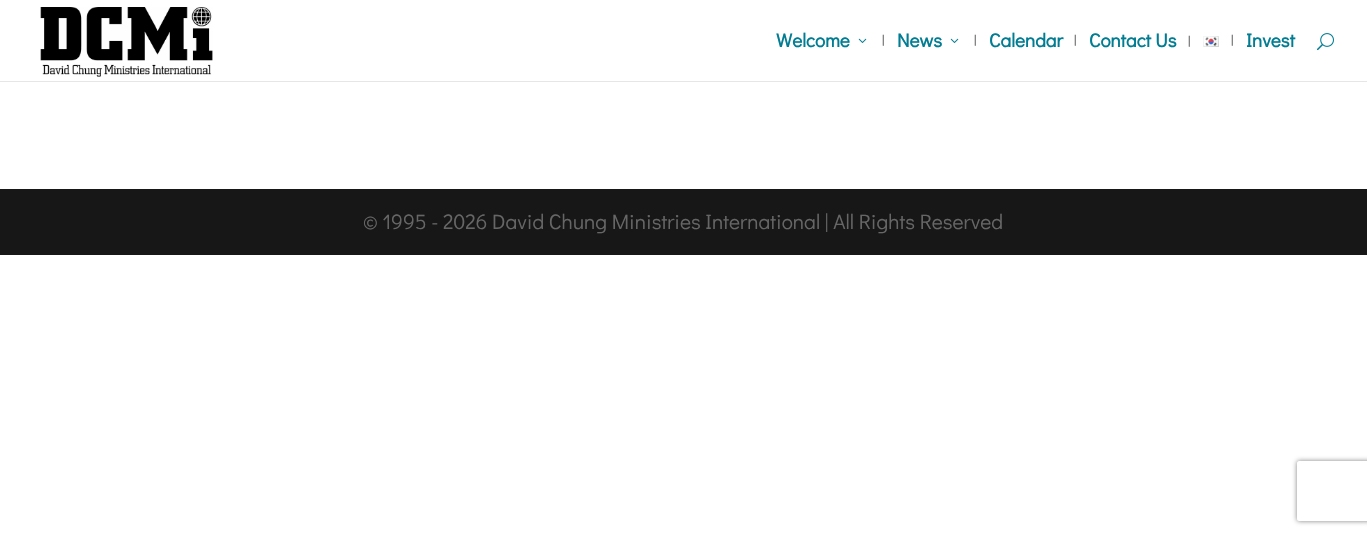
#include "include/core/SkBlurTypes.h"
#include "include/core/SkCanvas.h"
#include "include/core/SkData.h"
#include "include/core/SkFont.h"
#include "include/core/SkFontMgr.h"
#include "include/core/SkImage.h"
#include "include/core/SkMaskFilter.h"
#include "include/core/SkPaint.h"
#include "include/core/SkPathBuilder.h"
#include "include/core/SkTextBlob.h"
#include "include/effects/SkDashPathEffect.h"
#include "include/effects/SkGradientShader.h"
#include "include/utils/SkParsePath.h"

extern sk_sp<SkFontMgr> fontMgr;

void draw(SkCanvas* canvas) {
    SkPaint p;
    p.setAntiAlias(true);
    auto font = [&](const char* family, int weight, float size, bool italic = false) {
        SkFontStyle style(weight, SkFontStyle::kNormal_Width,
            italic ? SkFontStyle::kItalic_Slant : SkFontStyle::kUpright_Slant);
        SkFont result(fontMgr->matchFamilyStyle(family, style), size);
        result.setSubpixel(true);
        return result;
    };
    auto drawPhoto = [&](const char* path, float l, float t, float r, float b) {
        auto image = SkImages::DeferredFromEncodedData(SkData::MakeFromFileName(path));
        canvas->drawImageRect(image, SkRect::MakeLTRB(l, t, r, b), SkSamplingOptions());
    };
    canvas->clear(0xFFFFFFFF);
    p.setColor(0xFFE6E6E6);
    canvas->drawRect(SkRect::MakeLTRB(0, 81, 1367, 82), p);
    drawPhoto("media/1.png", 40, 7, 213, 77);
    auto font1 = font("Didact Gothic", 700, 19);
    p.setColor(0xFF017D93);
    canvas->drawString("Welcome", 776, 47, font1, p);
    drawPhoto("media/2.png", 858, 38, 867, 43);
    auto font2 = font("Didact Gothic", 700, 12);
    p.setColor(0xFF666666);
    canvas->drawString("|", 882, 44, font2, p);
    p.setColor(0xFF017D93);
    canvas->drawString("News", 897, 47, font1, p);
    drawPhoto("media/2.png", 950, 38, 959, 43);
    p.setColor(0xFF666666);
    canvas->drawString("|", 974, 44, font2, p);
    p.setColor(0xFF017D93);
    canvas->drawString("Calendar", 989, 47, font1, p);
    p.setColor(0xFF666666);
    canvas->drawString("|", 1074, 44, font2, p);
    p.setColor(0xFF017D93);
    canvas->drawString("Contact Us", 1089, 47, font1, p);
    p.setColor(0xFF666666);
    canvas->drawString("|", 1188, 45, font2, p);
    drawPhoto("media/3.png", 1203, 36, 1219, 47);
    canvas->drawString("|", 1231, 44, font2, p);
    p.setColor(0xFF017D93);
    canvas->drawString("Invest", 1246, 47, font1, p);
    drawPhoto("media/4.png", 1317, 33, 1334, 51);
    p.setColor(0xFF171717);
    canvas->drawRect(SkRect::MakeLTRB(0, 189, 1367, 255), p);
    auto font3 = font("Didact Gothic", 400, 21);
    p.setColor(0xFF666666);
    canvas->drawString("© 1995 - 2026 David Chung Ministries International | All Rights Reserved", 363, 229, font3, p);
    canvas->save();
    canvas->clipPath(SkPathBuilder(SkPathFillType::kEvenOdd).moveTo(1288, 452).lineTo(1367, 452).lineTo(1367, 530).lineTo(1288, 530).close().moveTo(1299, 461).lineTo(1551, 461).cubicTo(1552, 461, 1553, 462, 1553, 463).lineTo(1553, 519).cubicTo(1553, 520, 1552, 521, 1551, 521).lineTo(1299, 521).cubicTo(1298, 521, 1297, 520, 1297, 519).lineTo(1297, 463).cubicTo(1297, 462, 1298, 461, 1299, 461).close().detach(), true);
    p.setColor(0xFF808080);
    p.setMaskFilter(SkMaskFilter::MakeBlur(kNormal_SkBlurStyle, 2.5f));
    canvas->drawRoundRect(SkRect::MakeLTRB(1297, 461, 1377, 521), 2, 2, p);
    p.setMaskFilter(nullptr);
    canvas->restore();
}
